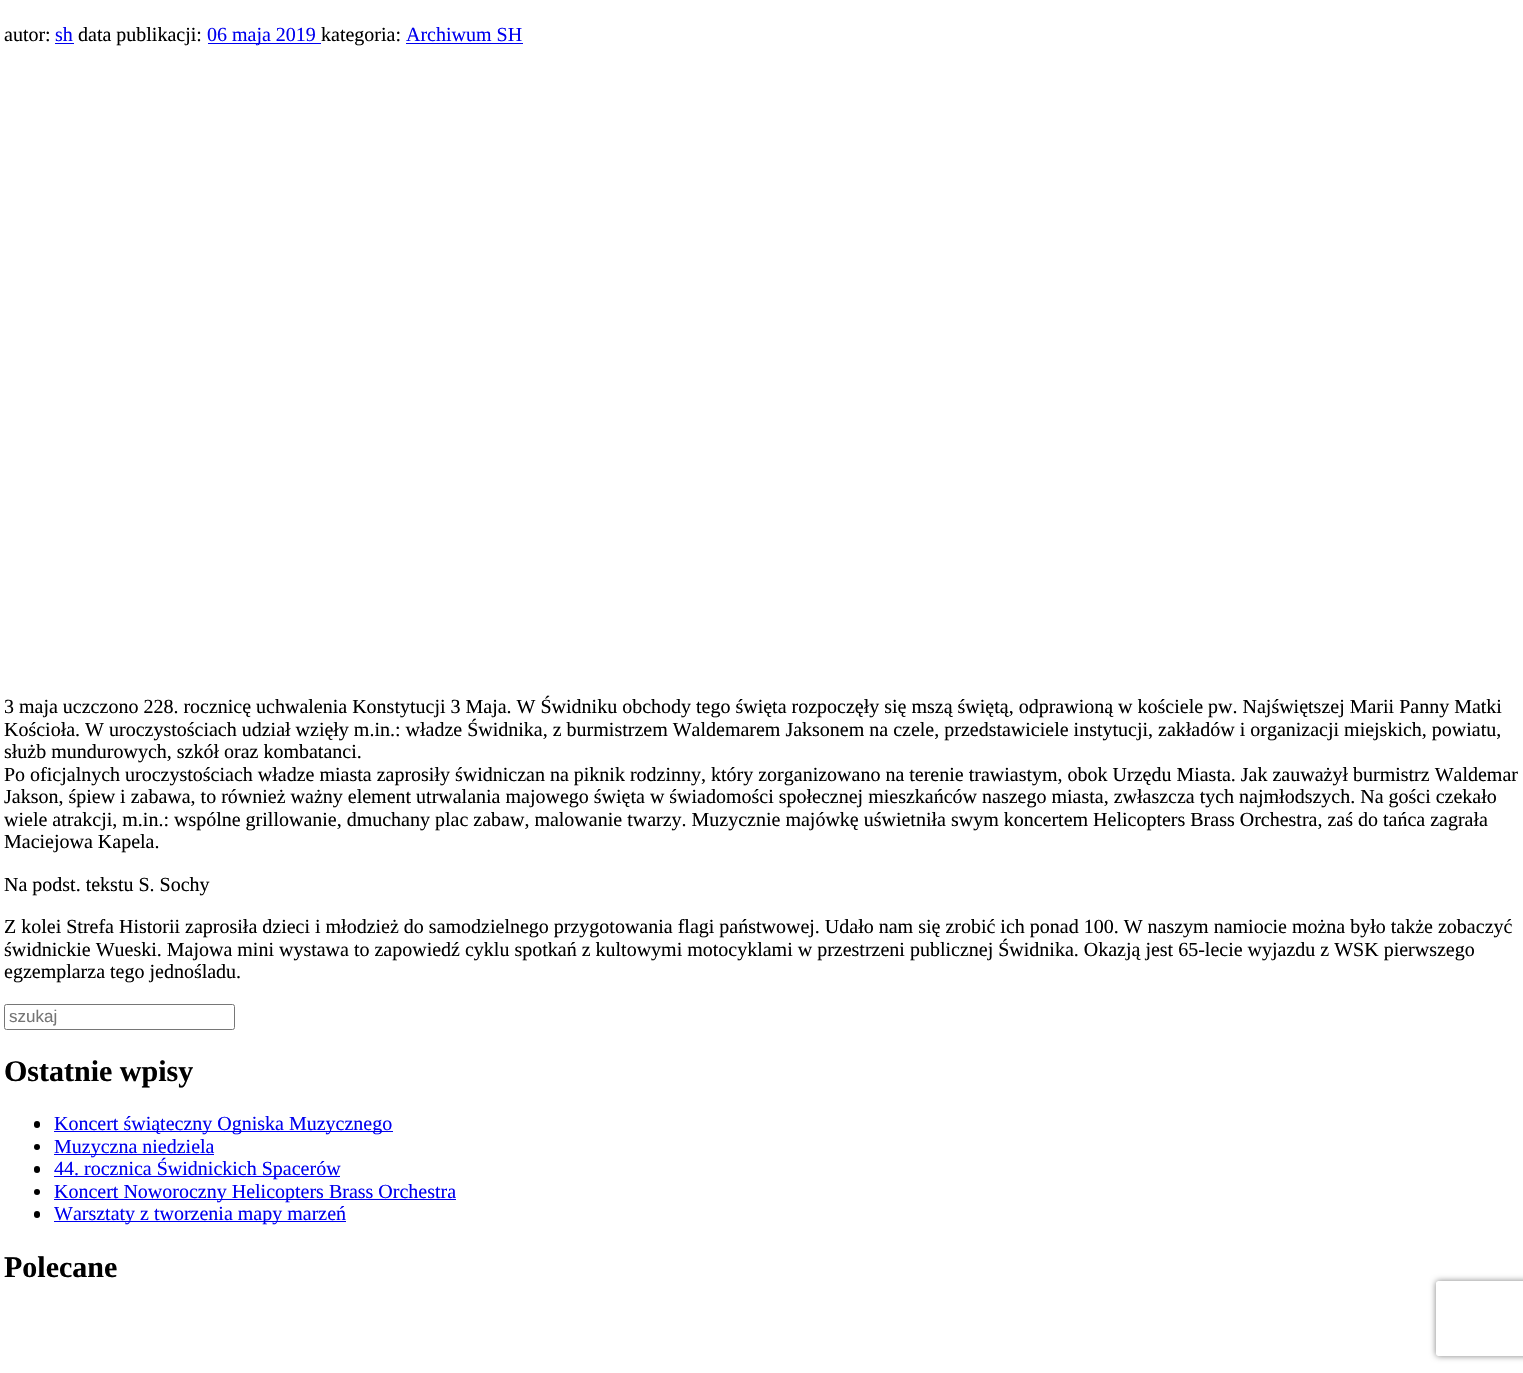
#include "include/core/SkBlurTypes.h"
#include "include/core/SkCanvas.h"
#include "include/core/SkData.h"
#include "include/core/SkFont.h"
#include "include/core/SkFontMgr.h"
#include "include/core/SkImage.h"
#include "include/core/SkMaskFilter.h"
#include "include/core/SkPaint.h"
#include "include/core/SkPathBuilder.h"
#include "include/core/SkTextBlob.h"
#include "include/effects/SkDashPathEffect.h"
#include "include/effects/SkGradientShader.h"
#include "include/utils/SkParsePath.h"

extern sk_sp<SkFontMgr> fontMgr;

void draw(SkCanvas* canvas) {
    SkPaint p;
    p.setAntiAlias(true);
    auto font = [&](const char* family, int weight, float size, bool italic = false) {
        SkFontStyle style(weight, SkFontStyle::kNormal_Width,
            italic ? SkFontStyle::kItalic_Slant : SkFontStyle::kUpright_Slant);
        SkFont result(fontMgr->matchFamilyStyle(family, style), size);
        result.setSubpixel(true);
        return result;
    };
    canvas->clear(0xFFFFFFFF);
    auto font1 = font("Liberation Serif", 400, 20);
    p.setColor(0xFF000000);
    canvas->drawString("autor:", 4, 41, font1, p);
    p.setColor(0xFF0000EE);
    canvas->drawString("sh", 55, 41, font1, p);
    canvas->drawRect(SkRect::MakeLTRB(55, 43, 74, 44), p);
    p.setColor(0xFF000000);
    canvas->drawString("data publikacji:", 78, 41, font1, p);
    p.setColor(0xFF0000EE);
    canvas->drawRect(SkRect::MakeLTRB(208, 43, 321, 44), p);
    canvas->drawString("06 maja 2019", 207, 41, font1, p);
    p.setColor(0xFF000000);
    canvas->drawString("kategoria:", 321, 41, font1, p);
    p.setColor(0xFF0000EE);
    canvas->drawString("Archiwum SH", 406, 41, font1, p);
    canvas->drawRect(SkRect::MakeLTRB(406, 43, 523, 44), p);
    p.setColor(0xFF000000);
    {
        const struct { const char* s; float x, y; } items[] = {
            {"3 maja uczczono 228. rocznicę uchwalenia Konstytucji 3 Maja. W Świdniku obchody tego święta rozpoczęły się mszą świętą, odprawioną w kościele pw. Najświętszej Marii Panny Matki", 4, 713},
            {"Kościoła. W uroczystościach udział wzięły m.in.: władze Świdnika, z burmistrzem Waldemarem Jaksonem na czele, przedstawiciele instytucji, zakładów i organizacji miejskich, powiatu,", 4, 736},
            {"służb mundurowych, szkół oraz kombatanci.", 4, 758},
            {"Po oficjalnych uroczystościach władze miasta zaprosiły świdniczan na piknik rodzinny, który zorganizowano na terenie trawiastym, obok Urzędu Miasta. Jak zauważył burmistrz Waldemar", 4, 781},
            {"Jakson, śpiew i zabawa, to również ważny element utrwalania majowego święta w świadomości społecznej mieszkańców naszego miasta, zwłaszcza tych najmłodszych. Na gości czekało", 4, 803},
            {"wiele atrakcji, m.in.: wspólne grillowanie, dmuchany plac zabaw, malowanie twarzy. Muzycznie majówkę uświetniła swym koncertem Helicopters Brass Orchestra, zaś do tańca zagrała", 4, 826},
            {"Maciejowa Kapela.", 4, 848},
            {"Na podst. tekstu S. Sochy", 4, 891},
            {"Z kolei Strefa Historii zaprosiła dzieci i młodzież do samodzielnego przygotowania flagi państwowej. Udało nam się zrobić ich ponad 100. W naszym namiocie można było także zobaczyć", 4, 933},
            {"świdnickie Wueski. Majowa mini wystawa to zapowiedź cyklu spotkań z kultowymi motocyklami w przestrzeni publicznej Świdnika. Okazją jest 65-lecie wyjazdu z WSK pierwszego", 4, 956},
            {"egzemplarza tego jednośladu.", 4, 978},
        };
        for (auto [s, x, y] : items) {
            canvas->drawString(s, x, y, font1, p);
        }
    }
    p.setStyle(SkPaint::kStroke_Style);
    p.setStrokeWidth(1);
    p.setColor(0xFF767676);
    canvas->drawRoundRect(SkRect::MakeLTRB(4.5f, 1004.5f, 234.5f, 1029.5f), 2, 2, p);
    auto font2 = font("Liberation Sans", 400, 17);
    p.setStyle(SkPaint::kFill_Style);
    p.setColor(0xFF757575);
    canvas->drawString("szukaj", 9, 1022, font2, p);
    auto font3 = font("Liberation Serif", 700, 30);
    p.setColor(0xFF000000);
    canvas->drawString("Ostatnie wpisy", 4, 1081, font3, p);
    canvas->drawRoundRect(SkRect::MakeLTRB(34, 1121, 40, 1128), 3, 3, p);
    p.setColor(0xFF0000EE);
    canvas->drawRect(SkRect::MakeLTRB(54, 1131, 393, 1132), p);
    canvas->drawString("Koncert świąteczny Ogniska Muzycznego", 54, 1130, font1, p);
    p.setColor(0xFF000000);
    canvas->drawCircle(37, 1147, 3, p);
    p.setColor(0xFF0000EE);
    canvas->drawRect(SkRect::MakeLTRB(54, 1154, 214, 1155), p);
    canvas->drawString("Muzyczna niedziela", 54, 1153, font1, p);
    p.setColor(0xFF000000);
    canvas->drawRoundRect(SkRect::MakeLTRB(34, 1166, 40, 1173), 3, 3, p);
    p.setColor(0xFF0000EE);
    canvas->drawRect(SkRect::MakeLTRB(54, 1176, 340, 1177), p);
    canvas->drawString("44. rocznica Świdnickich Spacerów", 54, 1175, font1, p);
    p.setColor(0xFF000000);
    canvas->drawCircle(37, 1192, 3, p);
    p.setColor(0xFF0000EE);
    canvas->drawRect(SkRect::MakeLTRB(54, 1199, 456, 1200), p);
    canvas->drawString("Koncert Noworoczny Helicopters Brass Orchestra", 54, 1198, font1, p);
    p.setColor(0xFF000000);
    canvas->drawRoundRect(SkRect::MakeLTRB(34, 1211, 40, 1218), 3, 3, p);
    p.setColor(0xFF0000EE);
    canvas->drawRect(SkRect::MakeLTRB(54, 1221, 346, 1222), p);
    canvas->drawString("Warsztaty z tworzenia mapy marzeń", 54, 1220, font1, p);
    p.setColor(0xFF000000);
    canvas->drawString("Polecane", 4, 1277, font3, p);
    canvas->save();
    canvas->clipPath(SkPathBuilder(SkPathFillType::kEvenOdd).moveTo(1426, 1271).lineTo(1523, 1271).lineTo(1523, 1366).lineTo(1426, 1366).close().moveTo(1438.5f, 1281).lineTo(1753.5f, 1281).cubicTo(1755, 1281, 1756, 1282, 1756, 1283.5f).lineTo(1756, 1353.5f).cubicTo(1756, 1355, 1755, 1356, 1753.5f, 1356).lineTo(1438.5f, 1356).cubicTo(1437, 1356, 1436, 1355, 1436, 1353.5f).lineTo(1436, 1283.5f).cubicTo(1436, 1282, 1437, 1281, 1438.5f, 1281).close().detach(), true);
    p.setColor(0xFF808080);
    p.setMaskFilter(SkMaskFilter::MakeBlur(kNormal_SkBlurStyle, 3));
    canvas->drawRoundRect(SkRect::MakeLTRB(1436, 1281, 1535, 1356), 2.5f, 2.5f, p);
    p.setMaskFilter(nullptr);
    canvas->restore();
}
